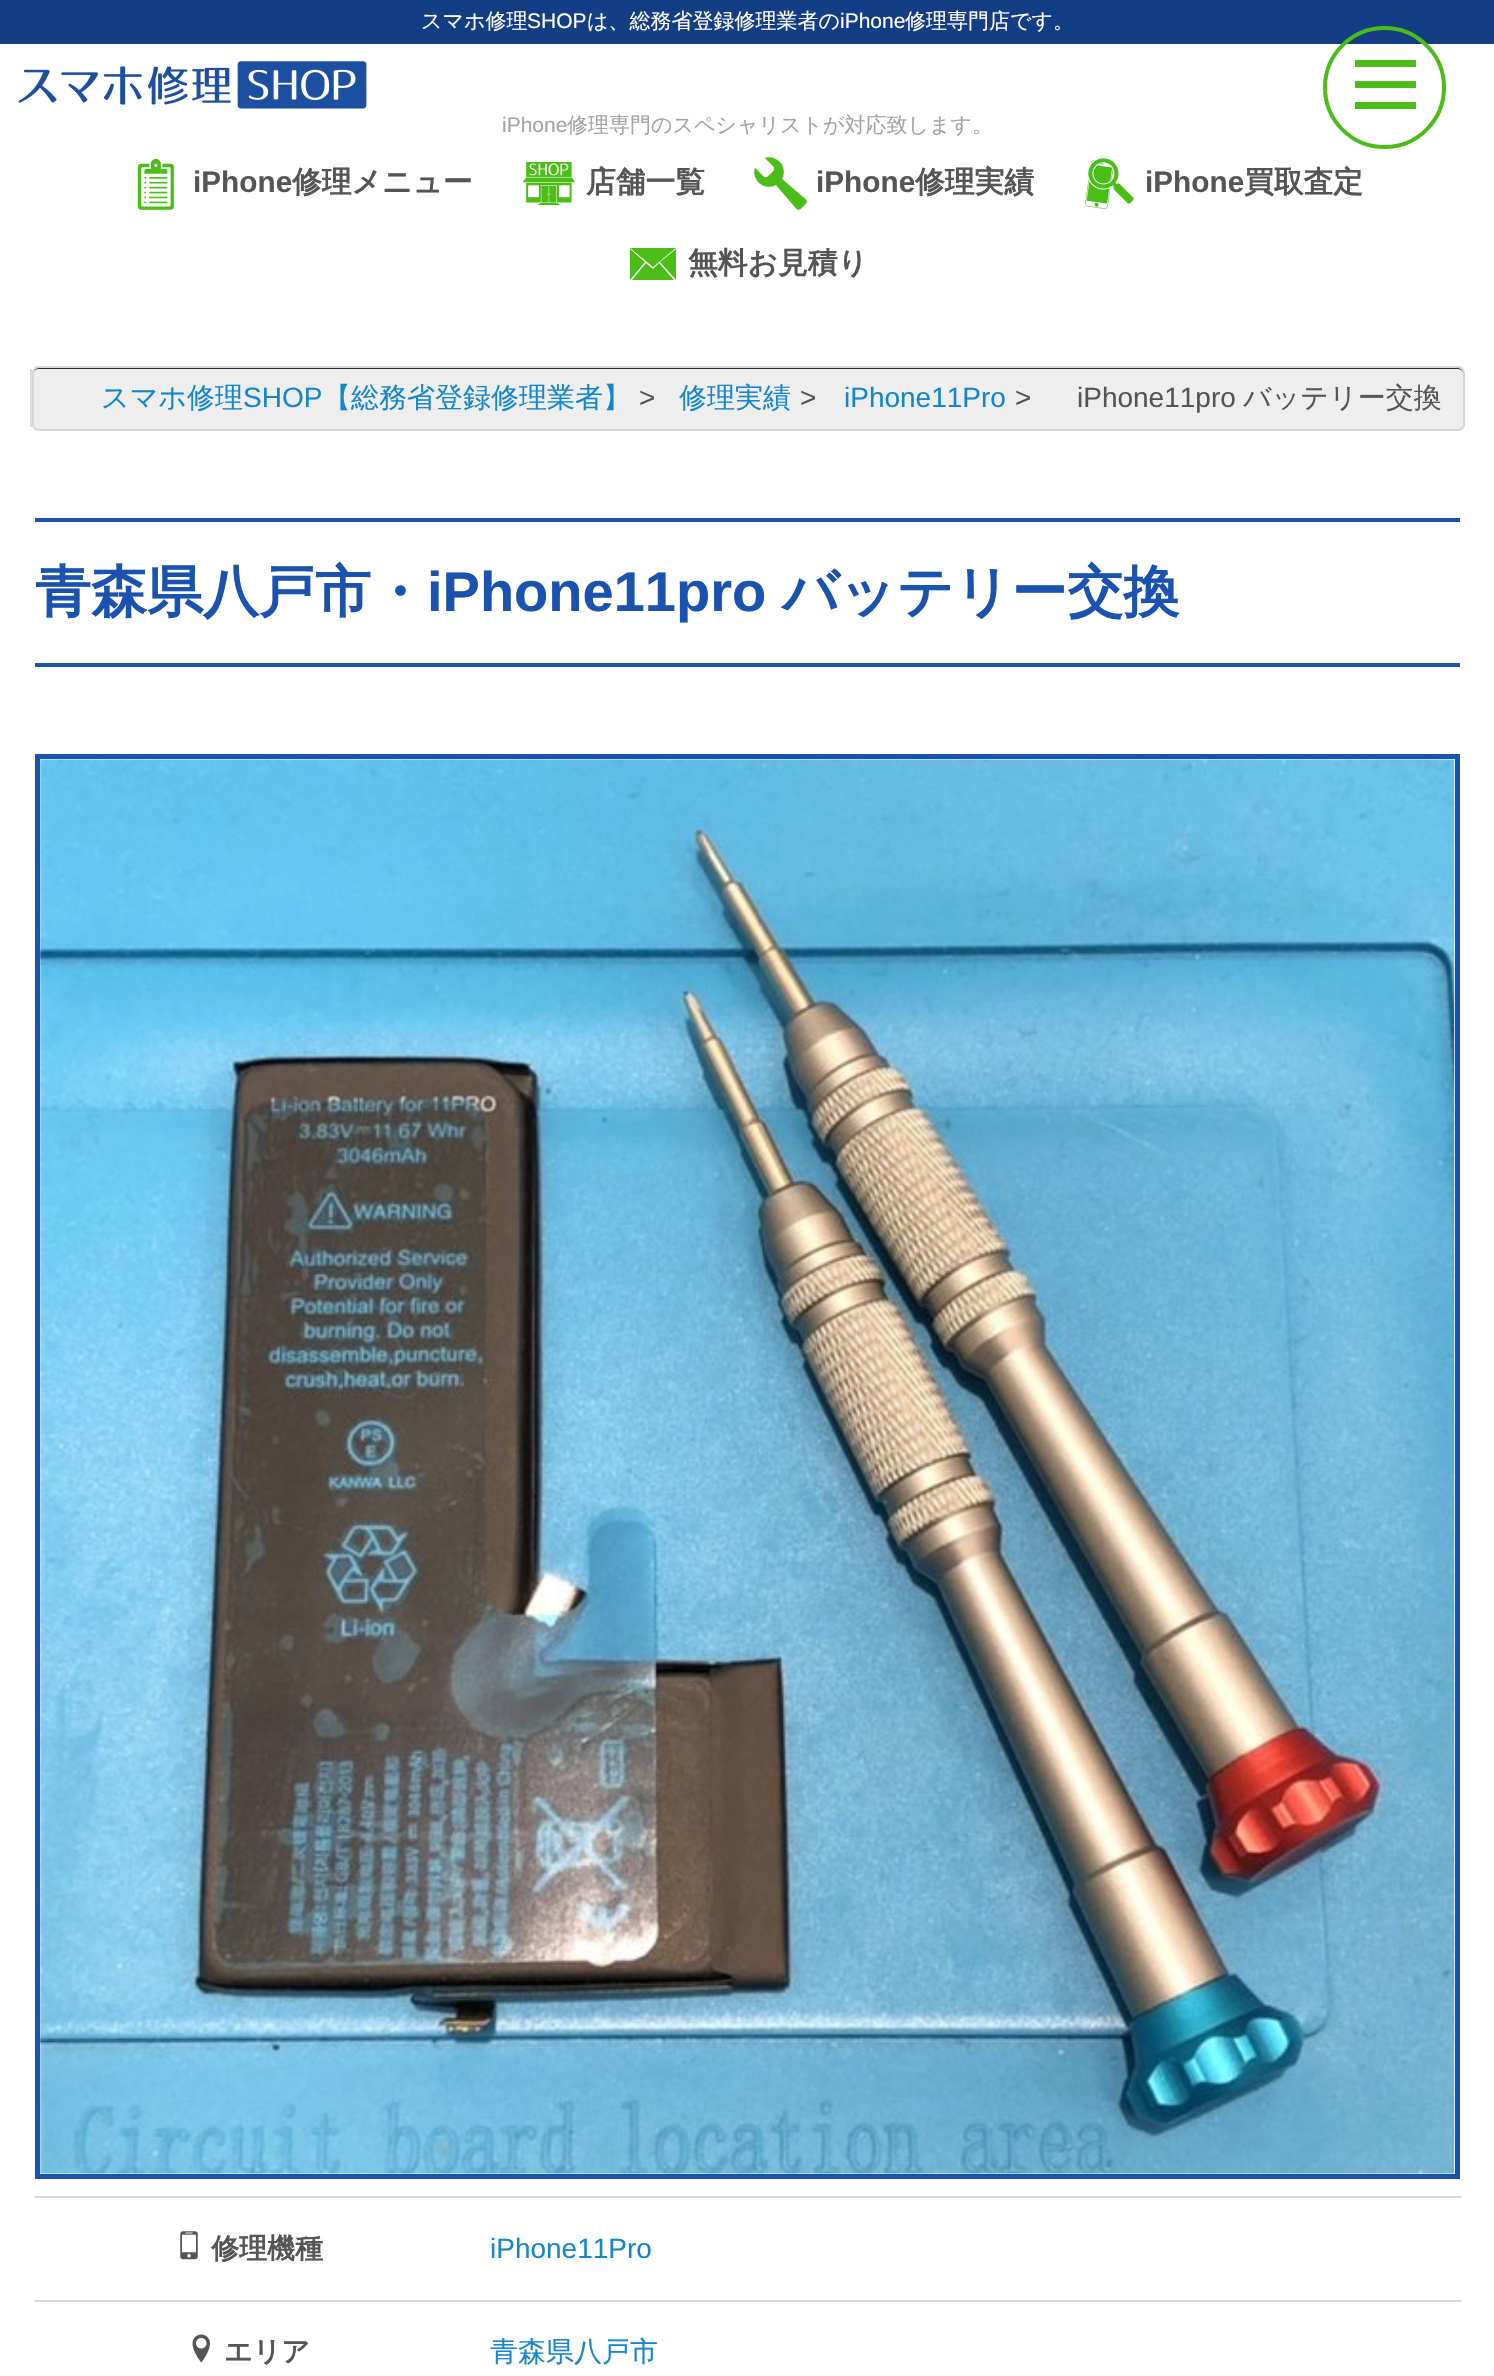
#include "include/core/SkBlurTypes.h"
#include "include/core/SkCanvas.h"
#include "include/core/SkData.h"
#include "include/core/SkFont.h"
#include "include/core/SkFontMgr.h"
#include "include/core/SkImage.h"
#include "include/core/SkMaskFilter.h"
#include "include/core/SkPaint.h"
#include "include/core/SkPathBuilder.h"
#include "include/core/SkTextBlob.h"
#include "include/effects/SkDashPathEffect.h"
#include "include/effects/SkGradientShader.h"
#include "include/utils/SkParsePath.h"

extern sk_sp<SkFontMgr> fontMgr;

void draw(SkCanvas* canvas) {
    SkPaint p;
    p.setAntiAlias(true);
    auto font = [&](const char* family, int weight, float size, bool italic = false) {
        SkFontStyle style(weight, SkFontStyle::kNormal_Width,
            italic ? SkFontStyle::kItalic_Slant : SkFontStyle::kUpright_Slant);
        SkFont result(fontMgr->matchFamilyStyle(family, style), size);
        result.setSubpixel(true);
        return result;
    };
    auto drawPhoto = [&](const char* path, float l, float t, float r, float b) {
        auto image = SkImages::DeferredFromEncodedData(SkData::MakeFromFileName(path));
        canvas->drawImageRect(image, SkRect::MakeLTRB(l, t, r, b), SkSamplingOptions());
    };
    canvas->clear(0xFFFFFFFF);
    p.setColor(0xFF133D84);
    canvas->drawRect(SkRect::MakeLTRB(0, 0, 1494, 44), p);
    auto font1 = font("WenQuanYi Zen Hei", 500, 21);
    p.setColor(0xFFFFFFFF);
    canvas->drawString("スマホ修理", 421, 28, font1, p);
    auto font2 = font("Liberation Sans", 400, 21);
    canvas->drawString("SHOP", 527, 28, font2, p);
    canvas->drawString("は、総務省登録修理業者の", 587, 28, font1, p);
    canvas->drawString("iPhone", 840, 28, font2, p);
    canvas->drawString("修理専門店です。", 905, 28, font1, p);
    drawPhoto("media/1.png", 18, 61, 367, 109);
    p.setColor(0xFFA3A3A3);
    canvas->drawString("iPhone", 502, 132, font2, p);
    canvas->drawString("修理専門のスペシャリストが対応致します。", 567, 132, font1, p);
    drawPhoto("media/2.png", 137, 158, 174, 210);
    auto font3 = font("Liberation Sans", 700, 29.75f);
    p.setColor(0xFF555555);
    canvas->drawString("iPhone", 193, 192, font3, p);
    auto font4 = font("WenQuanYi Zen Hei", 700, 29.75f);
    canvas->drawString("修理メニュー", 292, 192, font4, p);
    drawPhoto("media/3.png", 522, 162, 575, 206);
    canvas->drawString("店舗一覧", 586, 192, font4, p);
    drawPhoto("media/4.png", 754, 157, 807, 210);
    canvas->drawString("iPhone", 816, 192, font3, p);
    canvas->drawString("修理実績", 915, 192, font4, p);
    drawPhoto("media/5.png", 1085, 158, 1134, 209);
    canvas->drawString("iPhone", 1145, 192, font3, p);
    canvas->drawString("買取査定", 1244, 192, font4, p);
    p.setColor(0xFF4BBD17);
    canvas->drawPath(SkPathBuilder().moveTo(653, 269).lineTo(646, 263).lineTo(632, 280).lineTo(674, 280).lineTo(659, 263).close().moveTo(676, 248).lineTo(630, 248).lineTo(653, 267).close().moveTo(660, 262).lineTo(676, 280).lineTo(676, 249).close().moveTo(630, 249).lineTo(630, 280).lineTo(645, 262).close().detach(), p);
    p.setColor(0xFF555555);
    canvas->drawString("無料お見積り", 688, 273, font4, p);
    p.setColor(0xFFD6D6D6);
    canvas->drawRect(SkRect::MakeLTRB(30, 369, 32, 427), p);
    p.setColor(0xFFFFFFFF);
    p.setMaskFilter(SkMaskFilter::MakeBlur(kNormal_SkBlurStyle, 1));
    canvas->drawRoundRect(SkRect::MakeLTRB(32, 368, 1465, 432), 7, 7, p);
    p.setMaskFilter(nullptr);
    p.setColor(0xFFEEEEEE);
    canvas->drawRoundRect(SkRect::MakeLTRB(32, 366, 1465, 431), 7, 7, p);
    p.setColor(0xFF303030);
    canvas->drawPath(SkPathBuilder().moveTo(38, 369).lineTo(1458, 369).cubicTo(1461, 369, 1463, 372, 1463, 374).cubicTo(1463, 371, 1461, 368, 1458, 368).lineTo(38, 368).cubicTo(35, 368, 33, 371, 33, 374).cubicTo(33, 372, 36, 369, 38, 369).close().detach(), p);
    p.setStyle(SkPaint::kStroke_Style);
    p.setStrokeWidth(2);
    p.setColor(0xFFD6D6D6);
    canvas->drawRoundRect(SkRect::MakeLTRB(33, 367, 1464, 430), 6, 6, p);
    auto font5 = font("WenQuanYi Zen Hei", 500, 28);
    p.setStyle(SkPaint::kFill_Style);
    p.setColor(0xFF1386CE);
    canvas->drawString("スマホ修理", 101, 407, font5, p);
    auto font6 = font("Liberation Sans", 400, 28);
    canvas->drawString("SHOP", 243, 407, font6, p);
    canvas->drawString("【総務省登録修理業者】", 323, 407, font5, p);
    p.setColor(0xFF555555);
    canvas->drawString(">", 639, 407, font6, p);
    p.setColor(0xFF1386CE);
    canvas->drawString("修理実績", 679, 407, font5, p);
    p.setColor(0xFF555555);
    canvas->drawString(">", 800, 407, font6, p);
    p.setColor(0xFF1386CE);
    canvas->drawString("iPhone11Pro", 844, 407, font6, p);
    p.setColor(0xFF555555);
    canvas->drawString(">", 1015, 407, font6, p);
    canvas->drawString("iPhone11pro", 1077, 407, font6, p);
    canvas->drawString("バッテリー交換", 1243, 407, font5, p);
    p.setColor(0xFF1A52B0);
    canvas->drawRect(SkRect::MakeLTRB(35, 518, 1460, 522), p);
    canvas->drawRect(SkRect::MakeLTRB(35, 663, 1460, 667), p);
    auto font7 = font("WenQuanYi Zen Hei", 700, 56);
    canvas->drawString("青森県八戸市・", 35, 611, font7, p);
    auto font8 = font("Liberation Sans", 700, 56);
    canvas->drawString("iPhone11pro", 427, 611, font8, p);
    canvas->drawString("バッテリー交換", 782, 611, font7, p);
    p.setStyle(SkPaint::kStroke_Style);
    p.setStrokeWidth(5);
    canvas->drawRect(SkRect::MakeLTRB(37.5f, 756.5f, 1457.5f, 2176.5f), p);
    drawPhoto("media/6.png", 40, 759, 1455, 2174);
    drawPhoto("media/7.png", 180, 2231, 198, 2260);
    auto font9 = font("WenQuanYi Zen Hei", 700, 28);
    p.setStyle(SkPaint::kFill_Style);
    p.setColor(0xFF555555);
    canvas->drawString("修理機種", 211, 2258, font9, p);
    p.setColor(0xFFD6D6D6);
    canvas->drawRect(SkRect::MakeLTRB(35, 2196, 1461, 2198), p);
    p.setColor(0xFF1386CE);
    canvas->drawString("iPhone11Pro", 490, 2258, font6, p);
    drawPhoto("media/8.png", 192, 2334, 210, 2363);
    p.setColor(0xFF555555);
    canvas->drawString("エリア", 224, 2361, font9, p);
    p.setColor(0xFFD6D6D6);
    canvas->drawRect(SkRect::MakeLTRB(35, 2300, 1461, 2302), p);
    p.setColor(0xFF1386CE);
    canvas->drawString("青森県八戸市", 490, 2361, font5, p);
    p.setStyle(SkPaint::kStroke_Style);
    p.setStrokeWidth(4);
    p.setColor(0xFF4BBD17);
    canvas->drawCircle(1384.5f, 87.5f, 59.5f, p);
    p.setStyle(SkPaint::kFill_Style);
    {
        const struct { float l, t, r, b; SkColor color; } items[] = {
            {1355, 81, 1416, 88, 0xFF4BBD17},
            {1355, 60, 1416, 67, 0xFF4BBD17},
            {1355, 102, 1416, 109, 0xFF4BBD17},
        };
        for (auto [l, t, r, b, color] : items) {
            p.setColor(color);
            canvas->drawRect(SkRect::MakeLTRB(l, t, r, b), p);
        }
    }
}
